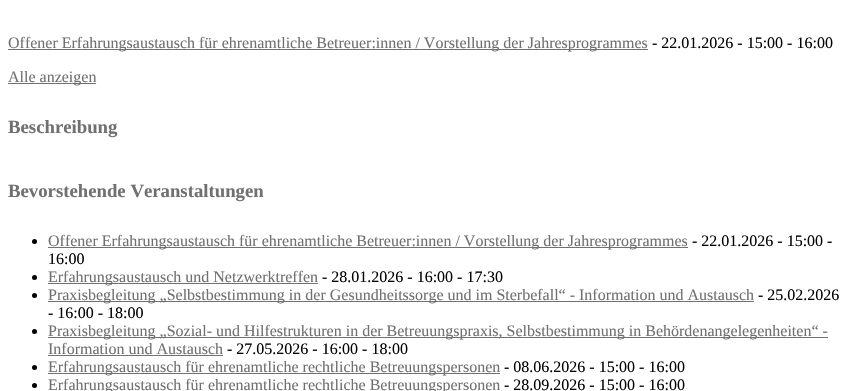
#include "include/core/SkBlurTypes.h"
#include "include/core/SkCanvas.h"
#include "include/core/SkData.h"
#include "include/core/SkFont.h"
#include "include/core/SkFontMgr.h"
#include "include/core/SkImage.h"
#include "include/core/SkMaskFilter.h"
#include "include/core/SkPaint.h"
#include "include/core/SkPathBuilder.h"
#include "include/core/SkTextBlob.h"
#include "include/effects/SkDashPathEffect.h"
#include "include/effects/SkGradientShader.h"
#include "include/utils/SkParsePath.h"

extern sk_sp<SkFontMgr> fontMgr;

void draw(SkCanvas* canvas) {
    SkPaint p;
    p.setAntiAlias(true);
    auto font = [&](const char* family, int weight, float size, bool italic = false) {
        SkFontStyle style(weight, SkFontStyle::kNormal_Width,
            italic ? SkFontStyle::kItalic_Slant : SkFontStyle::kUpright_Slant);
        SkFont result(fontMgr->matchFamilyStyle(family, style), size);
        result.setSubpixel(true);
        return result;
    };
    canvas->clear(0xFFFFFFFF);
    p.setColor(0xFF707070);
    canvas->drawRect(SkRect::MakeLTRB(8, 49, 648, 50), p);
    auto font1 = font("Liberation Serif", 400, 16);
    canvas->drawString("Offener Erfahrungsaustausch für ehrenamtliche Betreuer:innen / Vorstellung der Jahresprogrammes", 8, 48, font1, p);
    p.setColor(0xFF000000);
    canvas->drawString("- 22.01.2026 - 15:00 - 16:00", 652, 48, font1, p);
    p.setColor(0xFF707070);
    canvas->drawRect(SkRect::MakeLTRB(8, 83, 96, 84), p);
    canvas->drawString("Alle anzeigen", 8, 82, font1, p);
    auto font2 = font("Liberation Serif", 700, 18.75f);
    canvas->drawString("Beschreibung", 8, 133, font2, p);
    canvas->drawString("Bevorstehende Veranstaltungen", 8, 197, font2, p);
    p.setColor(0xFF000000);
    canvas->drawCircle(34.5f, 241.5f, 2.5f, p);
    p.setColor(0xFF707070);
    canvas->drawRect(SkRect::MakeLTRB(48, 247, 688, 248), p);
    canvas->drawString("Offener Erfahrungsaustausch für ehrenamtliche Betreuer:innen / Vorstellung der Jahresprogrammes", 48, 246, font1, p);
    p.setColor(0xFF000000);
    canvas->drawString("- 22.01.2026 - 15:00 -", 692, 246, font1, p);
    canvas->drawString("16:00", 48, 264, font1, p);
    canvas->drawCircle(34.5f, 277.5f, 2.5f, p);
    p.setColor(0xFF707070);
    canvas->drawRect(SkRect::MakeLTRB(48, 283, 318, 284), p);
    canvas->drawString("Erfahrungsaustausch und Netzwerktreffen", 48, 282, font1, p);
    p.setColor(0xFF000000);
    canvas->drawString("- 28.01.2026 - 16:00 - 17:30", 322, 282, font1, p);
    canvas->drawCircle(34.5f, 295.5f, 2.5f, p);
    p.setColor(0xFF707070);
    canvas->drawRect(SkRect::MakeLTRB(48, 301, 754, 302), p);
    canvas->drawString("Praxisbegleitung „Selbstbestimmung in der Gesundheitssorge und im Sterbefall“ - Information und Austausch", 48, 300, font1, p);
    p.setColor(0xFF000000);
    canvas->drawString("- 25.02.2026", 758, 300, font1, p);
    canvas->drawString("- 16:00 - 18:00", 48, 318, font1, p);
    canvas->drawCircle(34.5f, 331.5f, 2.5f, p);
    p.setColor(0xFF707070);
    canvas->drawRect(SkRect::MakeLTRB(48, 337, 828, 338), p);
    canvas->drawString("Praxisbegleitung „Sozial- und Hilfestrukturen in der Betreuungspraxis, Selbstbestimmung in Behördenangelegenheiten“ -", 48, 336, font1, p);
    canvas->drawString("Information und Austausch", 48, 354, font1, p);
    canvas->drawRect(SkRect::MakeLTRB(48, 355, 223, 356), p);
    p.setColor(0xFF000000);
    canvas->drawString("- 27.05.2026 - 16:00 - 18:00", 227, 354, font1, p);
    canvas->drawCircle(34.5f, 367.5f, 2.5f, p);
    p.setColor(0xFF707070);
    canvas->drawRect(SkRect::MakeLTRB(48, 373, 500, 374), p);
    canvas->drawString("Erfahrungsaustausch für ehrenamtliche rechtliche Betreuungspersonen", 48, 372, font1, p);
    p.setColor(0xFF000000);
    canvas->drawString("- 08.06.2026 - 15:00 - 16:00", 504, 372, font1, p);
    canvas->drawCircle(34.5f, 385.5f, 2.5f, p);
    p.setColor(0xFF707070);
    canvas->drawString("Erfahrungsaustausch für ehrenamtliche rechtliche Betreuungspersonen", 48, 390, font1, p);
    p.setColor(0xFF000000);
    canvas->drawString("- 28.09.2026 - 15:00 - 16:00", 504, 390, font1, p);
}
